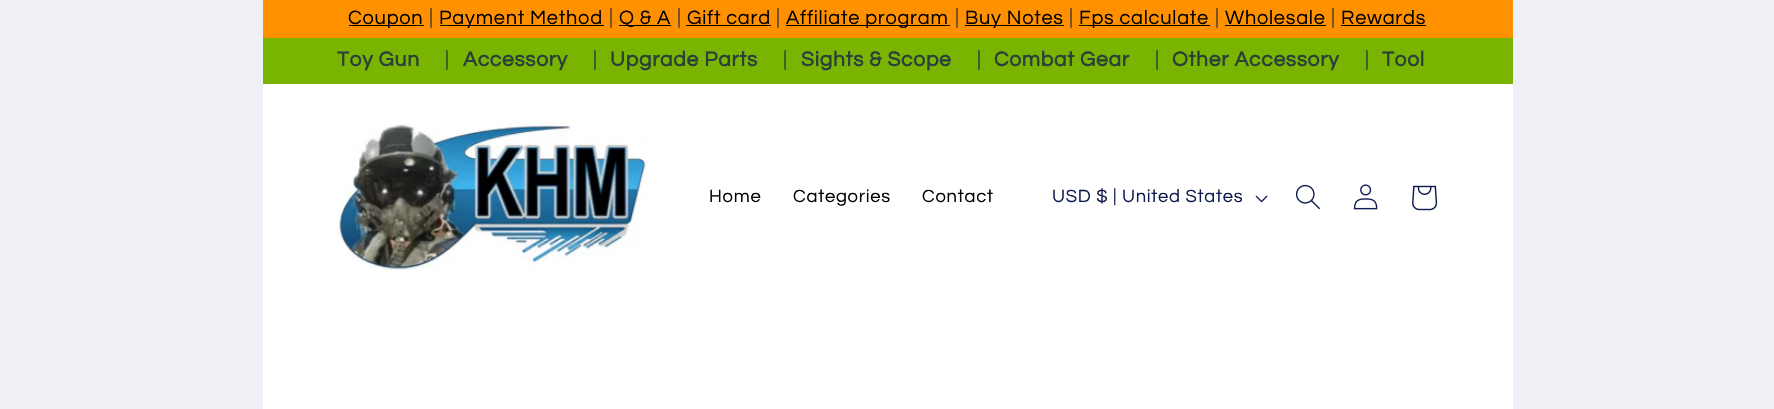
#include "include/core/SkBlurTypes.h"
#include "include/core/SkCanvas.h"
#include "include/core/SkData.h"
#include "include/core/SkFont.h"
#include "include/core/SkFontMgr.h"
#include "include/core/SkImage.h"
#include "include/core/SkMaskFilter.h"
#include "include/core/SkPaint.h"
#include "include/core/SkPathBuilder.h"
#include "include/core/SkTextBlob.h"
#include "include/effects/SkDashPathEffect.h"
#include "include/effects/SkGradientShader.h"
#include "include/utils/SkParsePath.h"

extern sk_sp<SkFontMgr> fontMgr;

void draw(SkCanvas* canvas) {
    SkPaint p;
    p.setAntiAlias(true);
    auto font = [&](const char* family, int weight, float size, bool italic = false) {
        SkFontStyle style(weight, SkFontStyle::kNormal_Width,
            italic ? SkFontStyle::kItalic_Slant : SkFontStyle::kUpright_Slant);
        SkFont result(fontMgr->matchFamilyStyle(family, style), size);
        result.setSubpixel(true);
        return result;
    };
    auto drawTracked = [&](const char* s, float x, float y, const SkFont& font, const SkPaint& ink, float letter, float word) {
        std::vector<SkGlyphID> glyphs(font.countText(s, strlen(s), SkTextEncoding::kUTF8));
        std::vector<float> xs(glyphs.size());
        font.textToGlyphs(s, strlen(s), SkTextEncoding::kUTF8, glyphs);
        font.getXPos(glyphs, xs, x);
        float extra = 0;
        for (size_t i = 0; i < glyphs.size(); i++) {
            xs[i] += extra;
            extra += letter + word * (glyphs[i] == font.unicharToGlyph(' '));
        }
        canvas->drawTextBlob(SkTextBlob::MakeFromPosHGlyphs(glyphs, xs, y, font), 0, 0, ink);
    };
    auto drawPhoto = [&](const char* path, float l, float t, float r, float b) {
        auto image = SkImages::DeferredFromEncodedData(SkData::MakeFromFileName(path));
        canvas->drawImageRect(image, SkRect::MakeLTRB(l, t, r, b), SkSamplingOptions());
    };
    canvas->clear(0xFFEFF0F5);
    p.setColor(0xFFFF9100);
    canvas->drawRect(SkRect::MakeLTRB(263, 0, 1513, 38), p);
    p.setColor(0xFF000000);
    canvas->drawRect(SkRect::MakeLTRB(349, 25, 424, 26), p);
    auto font1 = font("Questrial", 400, 20);
    drawTracked("Coupon", 348, 24, font1, p, 0.75f, 0);
    auto font2 = font("Questrial", 400, 21);
    p.setColor(0xFF4A393A);
    drawTracked("|", 429, 24, font2, p, 0.75f, 0);
    p.setColor(0xFF000000);
    canvas->drawRect(SkRect::MakeLTRB(440, 25, 604, 26), p);
    drawTracked("Payment Method", 439, 24, font1, p, 0.75f, 0);
    p.setColor(0xFF4A393A);
    drawTracked("|", 609, 24, font2, p, 0.75f, 0);
    p.setColor(0xFF000000);
    canvas->drawRect(SkRect::MakeLTRB(619, 25, 671, 26), p);
    drawTracked("Q & A", 619, 24, font1, p, 0.75f, 0);
    p.setColor(0xFF4A393A);
    drawTracked("|", 677, 24, font2, p, 0.75f, 0);
    p.setColor(0xFF000000);
    drawTracked("Gift card", 687, 24, font1, p, 0.75f, 0);
    canvas->drawRect(SkRect::MakeLTRB(686, 25, 771, 26), p);
    p.setColor(0xFF4A393A);
    drawTracked("|", 776, 24, font2, p, 0.75f, 0);
    p.setColor(0xFF000000);
    canvas->drawRect(SkRect::MakeLTRB(786, 25, 950, 26), p);
    drawTracked("Affiliate program", 786, 24, font1, p, 0.75f, 0);
    p.setColor(0xFF4A393A);
    drawTracked("|", 955, 24, font2, p, 0.75f, 0);
    p.setColor(0xFF000000);
    canvas->drawRect(SkRect::MakeLTRB(965, 25, 1064, 26), p);
    drawTracked("Buy Notes", 965, 24, font1, p, 0.75f, 0);
    p.setColor(0xFF4A393A);
    drawTracked("|", 1069, 24, font2, p, 0.75f, 0);
    p.setColor(0xFF000000);
    canvas->drawRect(SkRect::MakeLTRB(1079, 25, 1210, 26), p);
    drawTracked("Fps calculate", 1079, 24, font1, p, 0.75f, 0);
    p.setColor(0xFF4A393A);
    drawTracked("|", 1215, 24, font2, p, 0.75f, 0);
    p.setColor(0xFF000000);
    drawTracked("Wholesale", 1225, 24, font1, p, 0.75f, 0);
    canvas->drawRect(SkRect::MakeLTRB(1225, 25, 1326, 26), p);
    p.setColor(0xFF4A393A);
    drawTracked("|", 1331, 24, font2, p, 0.75f, 0);
    p.setColor(0xFF000000);
    drawTracked("Rewards", 1341, 24, font1, p, 0.75f, 0);
    canvas->drawRect(SkRect::MakeLTRB(1341, 25, 1426, 26), p);
    p.setColor(0xFF78B400);
    canvas->drawRect(SkRect::MakeLTRB(263, 38, 1513, 84), p);
    auto font3 = font("Questrial", 700, 21);
    p.setColor(0xFF29413A);
    drawTracked("Toy Gun", 337, 66, font3, p, 0.75f, 0);
    drawTracked("|", 445, 66, font2, p, 0.75f, 0);
    drawTracked("Accessory", 463, 66, font3, p, 0.75f, 0);
    drawTracked("|", 593, 66, font2, p, 0.75f, 0);
    drawTracked("Upgrade Parts", 610, 66, font3, p, 0.75f, 0);
    drawTracked("|", 783, 66, font2, p, 0.75f, 0);
    drawTracked("Sights & Scope", 801, 66, font3, p, 0.75f, 0);
    drawTracked("|", 977, 66, font2, p, 0.75f, 0);
    drawTracked("Combat Gear", 994, 66, font3, p, 0.75f, 0);
    drawTracked("|", 1155, 66, font2, p, 0.75f, 0);
    drawTracked("Other Accessory", 1172, 66, font3, p, 0.75f, 0);
    drawTracked("|", 1365, 66, font2, p, 0.75f, 0);
    drawTracked("Tool", 1382, 66, font3, p, 0.75f, 0);
    p.setColor(0xFFFFFFFF);
    canvas->drawRect(SkRect::MakeLTRB(263, 84, 1513, 409), p);
    drawPhoto("media/1.png", 337, 121, 648, 271);
    auto font4 = font("Questrial", 400, 18.4f);
    p.setColor(0xFF000000);
    {
        const struct { const char* s; float x, y; } items[] = {
            {"Home", 709, 202},
            {"Categories", 793, 202},
            {"Contact", 922, 202},
        };
        for (auto [s, x, y] : items) {
            drawTracked(s, x, y, font4, p, 0.75f, 0);
        }
    }
    p.setColor(0xFF0E1B4D);
    drawTracked("USD $ | United States", 1052, 202, font4, p, 0.75f, 0);
    drawPhoto("media/2.png", 1255, 195, 1268, 203);
    drawPhoto("media/3.png", 1295, 184, 1320, 210);
    drawPhoto("media/4.png", 1353, 184, 1378, 210);
    drawPhoto("media/5.png", 1412, 185, 1438, 211);
}
